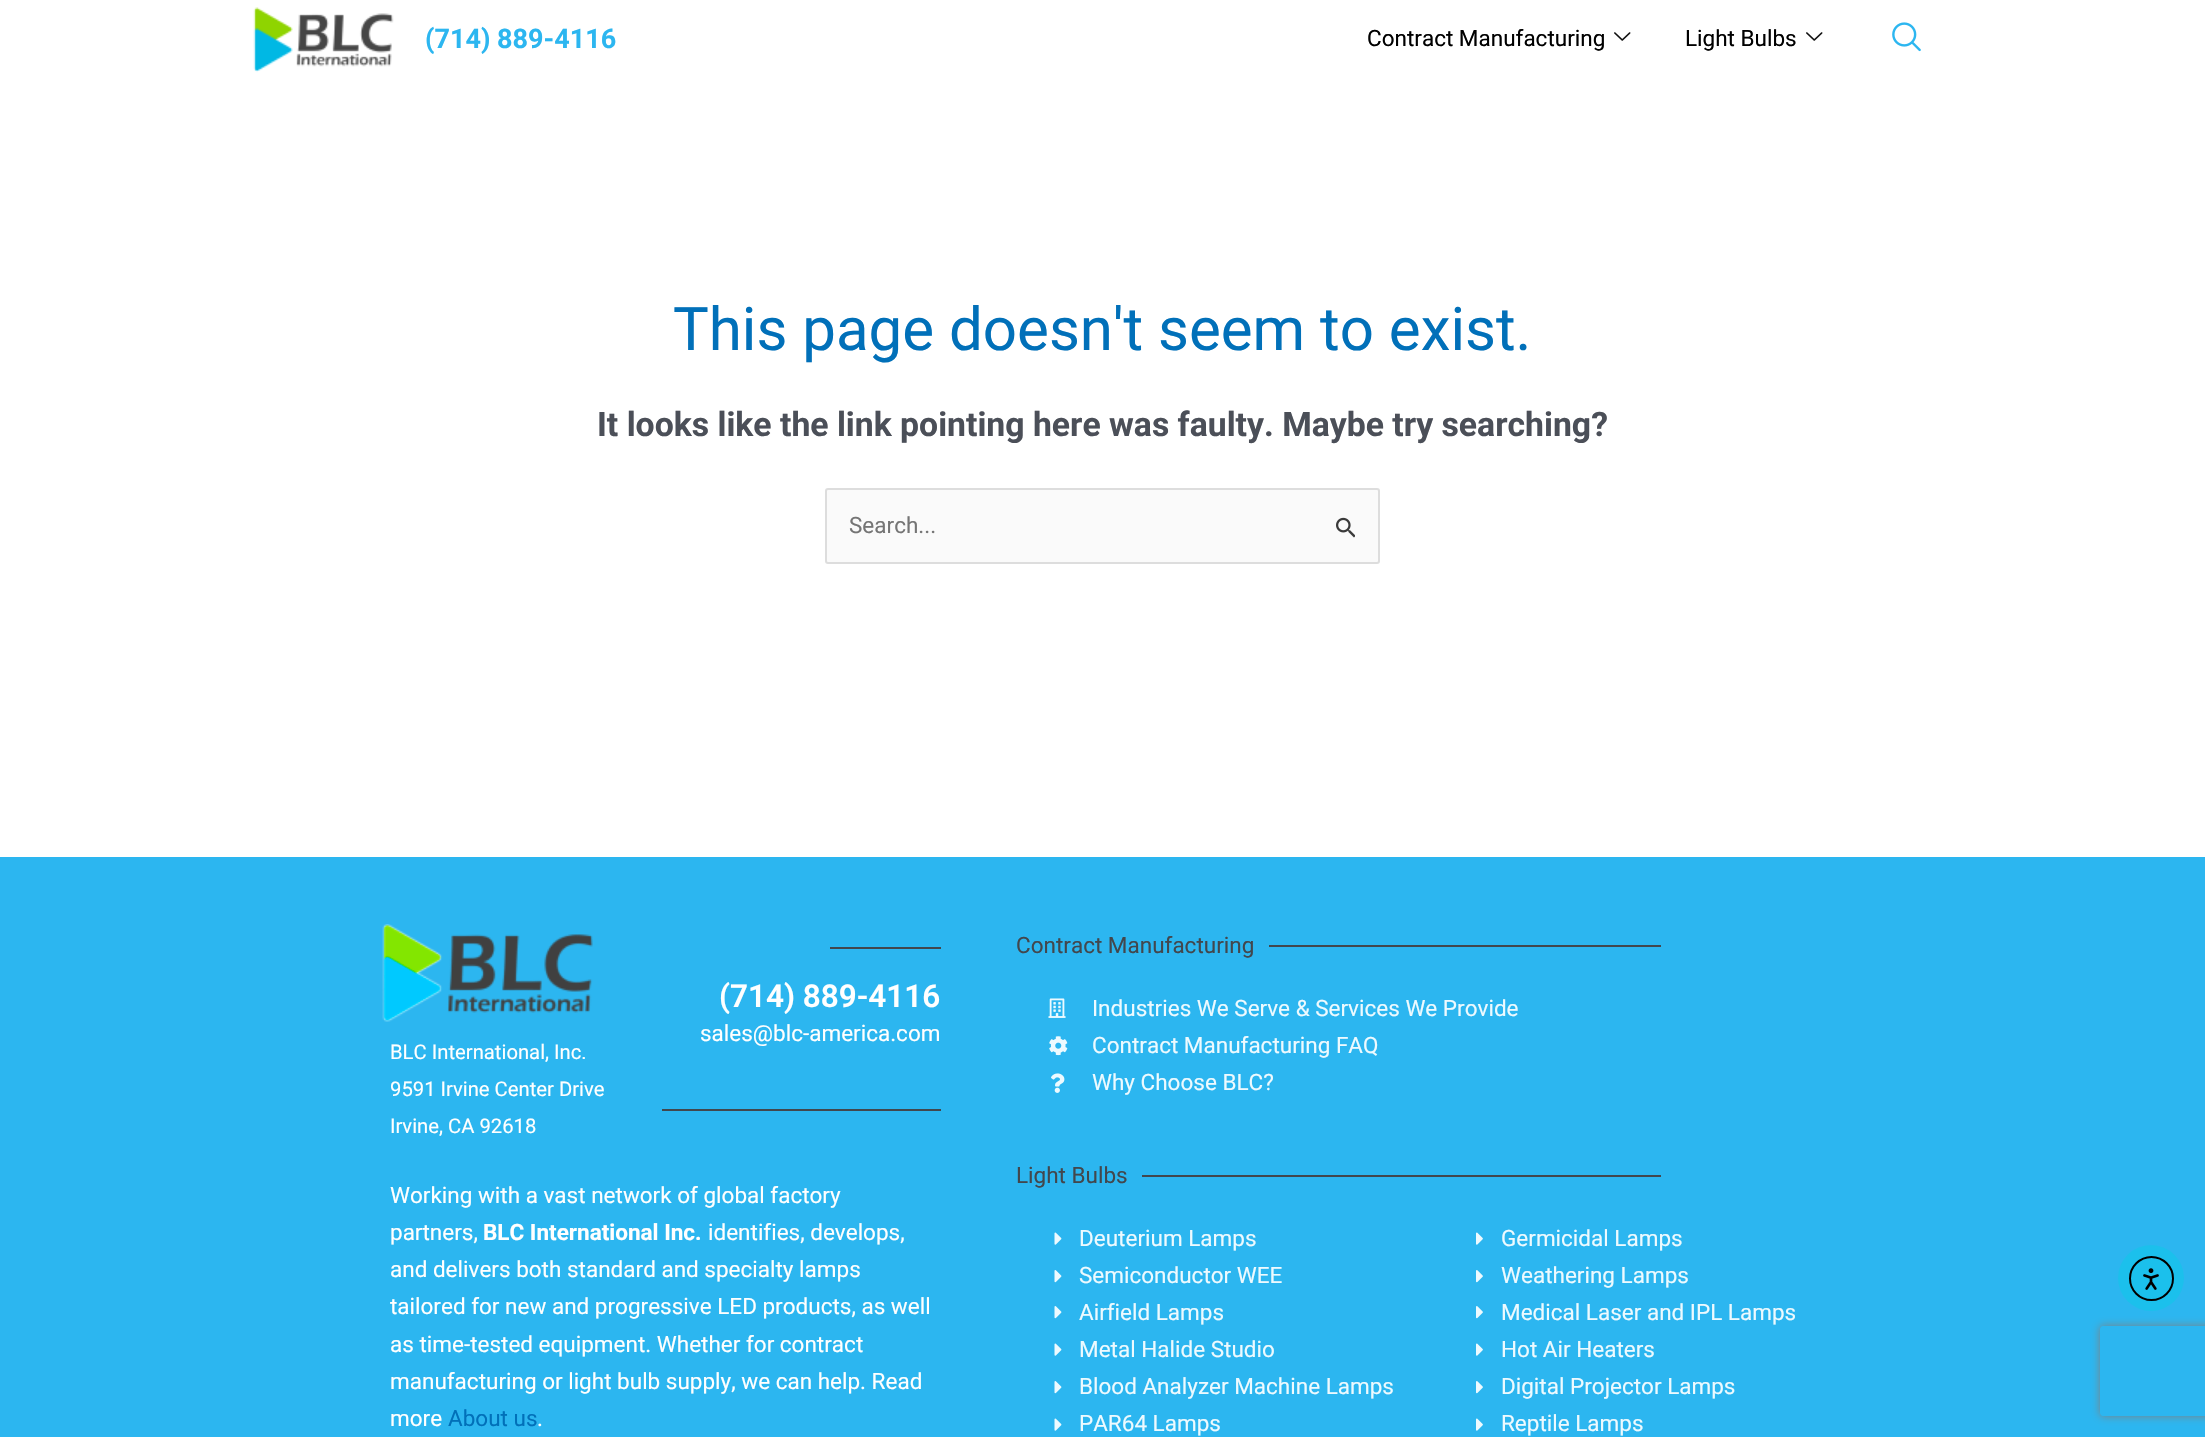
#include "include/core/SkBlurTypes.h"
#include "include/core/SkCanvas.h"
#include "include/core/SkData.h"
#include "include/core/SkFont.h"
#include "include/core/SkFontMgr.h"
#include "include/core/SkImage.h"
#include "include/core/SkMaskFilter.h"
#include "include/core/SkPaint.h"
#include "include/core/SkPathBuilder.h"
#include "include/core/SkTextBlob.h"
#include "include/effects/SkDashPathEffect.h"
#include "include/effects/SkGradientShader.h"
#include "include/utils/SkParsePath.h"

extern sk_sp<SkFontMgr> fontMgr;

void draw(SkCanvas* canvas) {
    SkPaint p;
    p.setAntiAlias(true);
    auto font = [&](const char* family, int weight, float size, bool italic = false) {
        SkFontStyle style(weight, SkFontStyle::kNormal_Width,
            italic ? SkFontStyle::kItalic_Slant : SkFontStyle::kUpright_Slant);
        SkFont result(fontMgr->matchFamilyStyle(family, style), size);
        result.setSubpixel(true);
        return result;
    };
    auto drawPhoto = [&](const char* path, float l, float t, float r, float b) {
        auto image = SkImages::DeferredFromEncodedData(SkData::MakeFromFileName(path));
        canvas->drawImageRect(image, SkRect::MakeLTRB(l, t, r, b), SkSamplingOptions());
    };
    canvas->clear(0xFFFFFFFF);
    drawPhoto("media/1.png", 253, 7, 394, 73);
    auto font1 = font("Roboto", 700, 27);
    p.setColor(0xFF2CB6F0);
    canvas->drawString("(714) 889-4116", 425, 48, font1, p);
    auto font2 = font("Roboto", 400, 22.5f);
    p.setColor(0xFF000000);
    canvas->drawString("Contract Manufacturing", 1367, 46, font2, p);
    drawPhoto("media/2.png", 1614, 32, 1631, 41);
    canvas->drawString("Light Bulbs", 1685, 46, font2, p);
    drawPhoto("media/2.png", 1806, 32, 1823, 41);
    drawPhoto("media/3.png", 1892, 22, 1921, 52);
    auto font3 = font("Roboto", 400, 60);
    p.setColor(0xFF0170B9);
    canvas->drawString("This page doesn't seem to exist.", 673, 350, font3, p);
    auto font4 = font("Roboto", 700, 33.75f);
    p.setColor(0xFF4B4F58);
    canvas->drawString("It looks like the link pointing here was faulty. Maybe try searching?", 597, 436, font4, p);
    p.setColor(0xFFFAFAFA);
    canvas->drawRoundRect(SkRect::MakeLTRB(826, 489, 1379, 563), 2, 2, p);
    p.setStyle(SkPaint::kStroke_Style);
    p.setStrokeWidth(2);
    p.setColor(0xFFDDDDDD);
    canvas->drawRoundRect(SkRect::MakeLTRB(826, 489, 1379, 563), 2, 2, p);
    p.setStyle(SkPaint::kFill_Style);
    p.setColor(0xFF757575);
    canvas->drawString("Search...", 849, 533, font2, p);
    drawPhoto("media/4.png", 1336, 517, 1355, 538);
    p.setColor(0xFF2CB6F0);
    canvas->drawRect(SkRect::MakeLTRB(0, 857, 2205, 1437), p);
    p.setColor(0xFF42474D);
    canvas->drawRect(SkRect::MakeLTRB(830, 947, 941, 949), p);
    auto font5 = font("Roboto", 600, 31.5f);
    p.setColor(0xFFFFFFFF);
    canvas->drawString("(714) 889-4116", 719, 1007, font5, p);
    canvas->drawString("sales@blc-america.com", 700, 1041, font2, p);
    p.setColor(0xFF42474D);
    canvas->drawRect(SkRect::MakeLTRB(662, 1109, 941, 1111), p);
    drawPhoto("media/5.png", 382, 924, 593, 1022);
    auto font6 = font("Roboto", 400, 20.25f);
    p.setColor(0xFFFFFFFF);
    {
        const struct { const char* s; float x, y; } items[] = {
            {"BLC International, Inc.", 390, 1059},
            {"9591 Irvine Center Drive", 390, 1096},
            {"Irvine, CA 92618", 390, 1133},
        };
        for (auto [s, x, y] : items) {
            canvas->drawString(s, x, y, font6, p);
        }
    }
    canvas->drawString("Working with a vast network of global factory", 390, 1203, font2, p);
    canvas->drawString("partners,", 390, 1240, font2, p);
    auto font7 = font("Roboto", 700, 22.5f);
    canvas->drawString("BLC International Inc.", 483, 1240, font7, p);
    {
        const struct { const char* s; float x, y; } items[] = {
            {"identifies, develops,", 708, 1240},
            {"and delivers both standard and specialty lamps", 390, 1277},
            {"tailored for new and progressive LED products, as well", 390, 1314},
            {"as time-tested equipment. Whether for contract", 390, 1352},
            {"manufacturing or light bulb supply, we can help. Read", 390, 1389},
            {"more", 390, 1426},
        };
        for (auto [s, x, y] : items) {
            canvas->drawString(s, x, y, font2, p);
        }
    }
    p.setColor(0xFF0170B9);
    canvas->drawString("About us", 448, 1426, font2, p);
    p.setColor(0xFFFFFFFF);
    canvas->drawString(".", 537, 1426, font2, p);
    p.setColor(0xFF42474D);
    canvas->drawString("Contract Manufacturing", 1016, 953, font2, p);
    canvas->drawRect(SkRect::MakeLTRB(1269, 945, 1661, 947), p);
    drawPhoto("media/6.png", 1048, 998, 1066, 1018);
    p.setColor(0xFFEDFAFF);
    canvas->drawString("Industries We Serve & Services We Provide", 1092, 1016, font2, p);
    drawPhoto("media/7.png", 1049, 1036, 1068, 1056);
    canvas->drawString("Contract Manufacturing FAQ", 1092, 1053, font2, p);
    drawPhoto("media/8.png", 1051, 1073, 1065, 1093);
    canvas->drawString("Why Choose BLC?", 1092, 1090, font2, p);
    p.setColor(0xFF42474D);
    canvas->drawString("Light Bulbs", 1016, 1183, font2, p);
    canvas->drawRect(SkRect::MakeLTRB(1142, 1175, 1661, 1177), p);
    drawPhoto("media/9.png", 1054, 1232, 1062, 1245);
    p.setColor(0xFFEDFAFF);
    canvas->drawString("Deuterium Lamps", 1079, 1246, font2, p);
    drawPhoto("media/10.png", 1054, 1270, 1062, 1283);
    canvas->drawString("Semiconductor WEE", 1079, 1283, font2, p);
    drawPhoto("media/10.png", 1054, 1306, 1062, 1319);
    canvas->drawString("Airfield Lamps", 1079, 1320, font2, p);
    drawPhoto("media/9.png", 1054, 1343, 1062, 1356);
    canvas->drawString("Metal Halide Studio", 1079, 1357, font2, p);
    drawPhoto("media/10.png", 1054, 1381, 1062, 1394);
    canvas->drawString("Blood Analyzer Machine Lamps", 1079, 1394, font2, p);
    drawPhoto("media/9.png", 1054, 1418, 1062, 1431);
    canvas->drawString("PAR64 Lamps", 1079, 1431, font2, p);
    drawPhoto("media/11.png", 1476, 1232, 1483, 1245);
    canvas->drawString("Germicidal Lamps", 1501, 1246, font2, p);
    drawPhoto("media/12.png", 1476, 1270, 1483, 1283);
    canvas->drawString("Weathering Lamps", 1501, 1283, font2, p);
    drawPhoto("media/12.png", 1476, 1306, 1483, 1319);
    canvas->drawString("Medical Laser and IPL Lamps", 1501, 1320, font2, p);
    drawPhoto("media/11.png", 1476, 1343, 1483, 1356);
    canvas->drawString("Hot Air Heaters", 1501, 1357, font2, p);
    drawPhoto("media/12.png", 1476, 1381, 1483, 1394);
    canvas->drawString("Digital Projector Lamps", 1501, 1394, font2, p);
    drawPhoto("media/11.png", 1476, 1418, 1483, 1431);
    canvas->drawString("Reptile Lamps", 1501, 1431, font2, p);
    p.setColor(0xFF1BC0EC);
    canvas->drawCircle(2151, 1278, 33, p);
    p.setStyle(SkPaint::kStroke_Style);
    p.setColor(0xFF000000);
    canvas->drawCircle(2151.5f, 1278.5f, 21.5f, p);
    drawPhoto("media/13.png", 2143, 1268, 2159, 1290);
    canvas->save();
    canvas->clipPath(SkPathBuilder(SkPathFillType::kEvenOdd).moveTo(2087, 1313).lineTo(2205, 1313).lineTo(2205, 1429).lineTo(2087, 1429).close().moveTo(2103, 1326).lineTo(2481, 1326).cubicTo(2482.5f, 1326, 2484, 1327.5f, 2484, 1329).lineTo(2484, 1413).cubicTo(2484, 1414.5f, 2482.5f, 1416, 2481, 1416).lineTo(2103, 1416).cubicTo(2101.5f, 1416, 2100, 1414.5f, 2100, 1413).lineTo(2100, 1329).cubicTo(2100, 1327.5f, 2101.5f, 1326, 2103, 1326).close().detach(), true);
    p.setStyle(SkPaint::kFill_Style);
    p.setColor(0xFF808080);
    p.setMaskFilter(SkMaskFilter::MakeBlur(kNormal_SkBlurStyle, 4));
    canvas->drawRoundRect(SkRect::MakeLTRB(2100, 1326, 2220, 1416), 3, 3, p);
    p.setMaskFilter(nullptr);
    canvas->restore();
}
